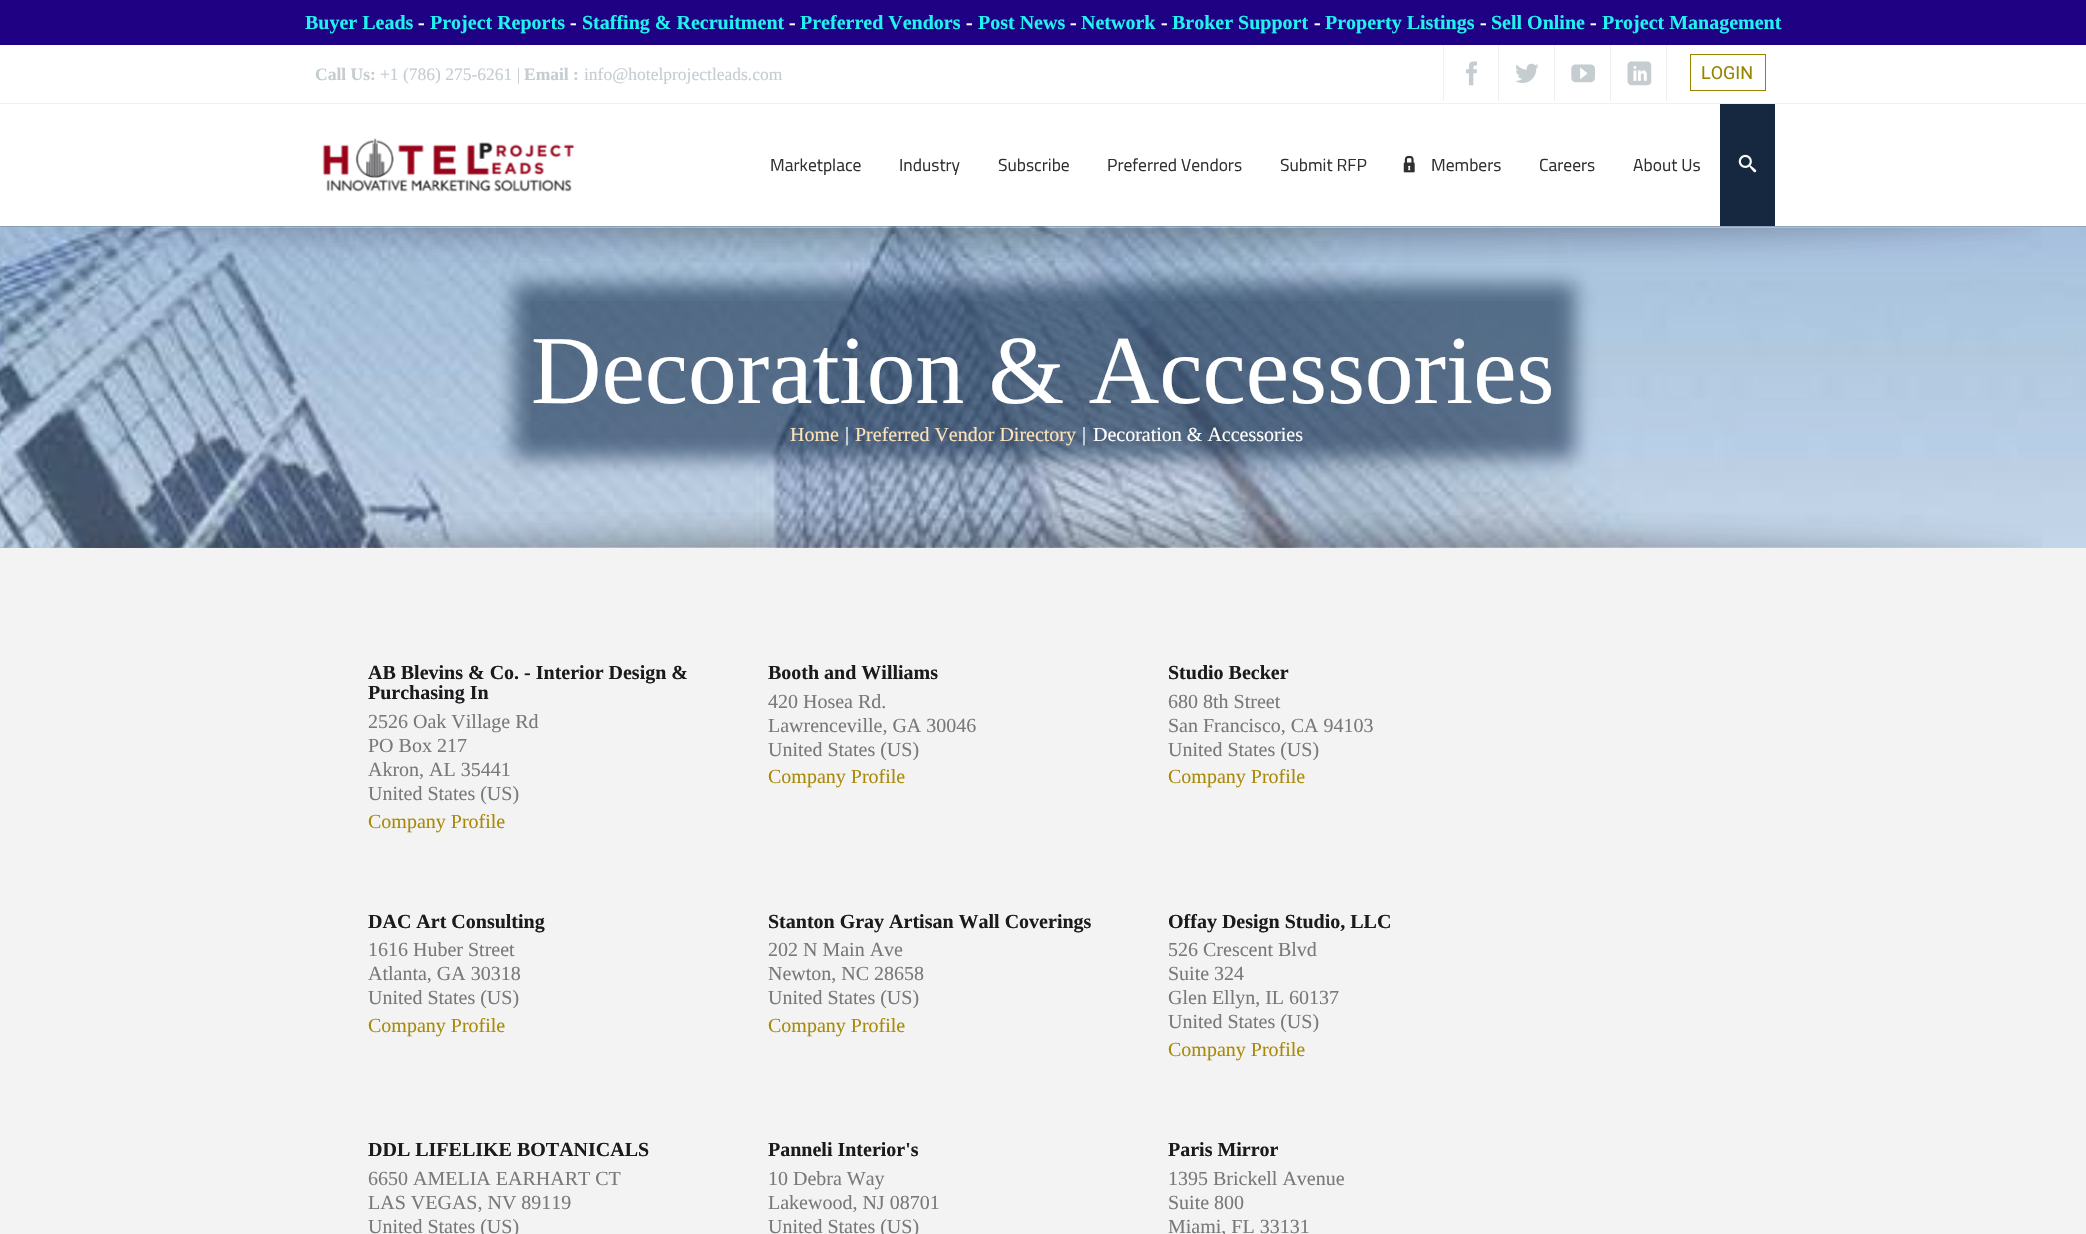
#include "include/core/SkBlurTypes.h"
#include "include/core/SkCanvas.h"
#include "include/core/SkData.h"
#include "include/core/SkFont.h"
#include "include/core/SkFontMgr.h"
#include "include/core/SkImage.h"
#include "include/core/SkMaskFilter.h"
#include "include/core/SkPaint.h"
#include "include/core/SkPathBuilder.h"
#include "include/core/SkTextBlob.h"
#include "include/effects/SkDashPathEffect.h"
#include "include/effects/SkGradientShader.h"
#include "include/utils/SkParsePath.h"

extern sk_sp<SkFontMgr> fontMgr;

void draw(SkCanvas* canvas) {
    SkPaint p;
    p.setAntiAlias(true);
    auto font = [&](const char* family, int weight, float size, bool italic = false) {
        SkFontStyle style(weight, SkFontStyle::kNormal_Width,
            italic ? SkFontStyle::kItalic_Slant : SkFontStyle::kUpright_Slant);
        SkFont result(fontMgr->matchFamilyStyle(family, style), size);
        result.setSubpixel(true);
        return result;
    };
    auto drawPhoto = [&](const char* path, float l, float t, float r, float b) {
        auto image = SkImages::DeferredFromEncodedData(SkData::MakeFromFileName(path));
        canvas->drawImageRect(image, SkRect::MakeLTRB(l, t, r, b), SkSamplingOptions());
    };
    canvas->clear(0xFFF3F3F3);
    p.setColor(0xFF1E0283);
    canvas->drawRect(SkRect::MakeLTRB(0, 0, 2086, 45), p);
    auto font1 = font("Liberation Serif", 700, 20);
    p.setColor(0xFF21F2EF);
    canvas->drawString("Buyer Leads", 305, 29, font1, p);
    p.setColor(0xFFFFFFFF);
    canvas->drawString("-", 418, 29, font1, p);
    p.setColor(0xFF21F2EF);
    canvas->drawString("Project Reports", 430, 29, font1, p);
    p.setColor(0xFFFFFFFF);
    canvas->drawString("-", 570, 29, font1, p);
    p.setColor(0xFF21F2EF);
    canvas->drawString("Staffing & Recruitment", 582, 29, font1, p);
    p.setColor(0xFFFFFFFF);
    canvas->drawString("-", 789, 29, font1, p);
    p.setColor(0xFF21F2EF);
    canvas->drawString("Preferred Vendors", 800, 29, font1, p);
    p.setColor(0xFFFFFFFF);
    canvas->drawString("-", 966, 29, font1, p);
    p.setColor(0xFF21F2EF);
    canvas->drawString("Post News", 978, 29, font1, p);
    p.setColor(0xFFFFFFFF);
    canvas->drawString("-", 1070, 29, font1, p);
    p.setColor(0xFF21F2EF);
    canvas->drawString("Network", 1081, 29, font1, p);
    p.setColor(0xFFFFFFFF);
    canvas->drawString("-", 1161, 29, font1, p);
    p.setColor(0xFF21F2EF);
    canvas->drawString("Broker Support", 1172, 29, font1, p);
    p.setColor(0xFFFFFFFF);
    canvas->drawString("-", 1314, 29, font1, p);
    p.setColor(0xFF21F2EF);
    canvas->drawString("Property Listings", 1325, 29, font1, p);
    p.setColor(0xFFFFFFFF);
    canvas->drawString("-", 1480, 29, font1, p);
    p.setColor(0xFF21F2EF);
    canvas->drawString("Sell Online", 1491, 29, font1, p);
    p.setColor(0xFFFFFFFF);
    canvas->drawString("-", 1590, 29, font1, p);
    p.setColor(0xFF21F2EF);
    canvas->drawString("Project Management", 1602, 29, font1, p);
    p.setColor(0xFFFFFFFF);
    canvas->drawRect(SkRect::MakeLTRB(0, 45, 2086, 103), p);
    p.setColor(0xFFF0F0F0);
    canvas->drawRect(SkRect::MakeLTRB(0, 103, 2086, 104), p);
    auto font2 = font("Liberation Serif", 700, 17.5f);
    p.setColor(0xFFC5CDD1);
    canvas->drawString("Call Us:", 315, 80, font2, p);
    auto font3 = font("Liberation Serif", 400, 17.5f);
    canvas->drawString("+1 (786) 275-6261 |", 380, 80, font3, p);
    canvas->drawString("Email :", 524, 80, font2, p);
    canvas->drawString("info@hotelprojectleads.com", 584, 80, font3, p);
    p.setColor(0xFFF0F0F0);
    canvas->drawRect(SkRect::MakeLTRB(1498, 45, 1499, 101), p);
    canvas->drawRect(SkRect::MakeLTRB(1443, 45, 1444, 101), p);
    drawPhoto("media/1.png", 1466, 61, 1477, 86);
    canvas->drawRect(SkRect::MakeLTRB(1554, 45, 1555, 101), p);
    drawPhoto("media/2.png", 1515, 63, 1539, 83);
    canvas->drawRect(SkRect::MakeLTRB(1610, 45, 1611, 101), p);
    drawPhoto("media/3.png", 1571, 64, 1595, 83);
    canvas->drawRect(SkRect::MakeLTRB(1666, 45, 1667, 101), p);
    drawPhoto("media/4.png", 1627, 61, 1652, 86);
    p.setStyle(SkPaint::kStroke_Style);
    p.setStrokeWidth(1);
    p.setColor(0xFF968400);
    canvas->drawRect(SkRect::MakeLTRB(1690.5f, 54.5f, 1765.5f, 90.5f), p);
    auto font4 = font("Roboto", 400, 18);
    p.setStyle(SkPaint::kFill_Style);
    canvas->drawString("LOGIN", 1701, 79, font4, p);
    p.setColor(0xFFFFFFFF);
    canvas->drawRect(SkRect::MakeLTRB(0, 104, 2086, 226), p);
    drawPhoto("media/5.png", 322, 138, 574, 192);
    auto font5 = font("Titillium Web", 400, 17.5f);
    p.setColor(0xFF303030);
    {
        const struct { const char* s; float x, y; } items[] = {
            {"Marketplace", 770, 171},
            {"Industry", 899, 171},
            {"Subscribe", 998, 171},
            {"Preferred Vendors", 1107, 171},
            {"Submit RFP", 1280, 171},
        };
        for (auto [s, x, y] : items) {
            canvas->drawString(s, x, y, font5, p);
        }
    }
    drawPhoto("media/6.png", 1403, 155, 1415, 173);
    {
        const struct { const char* s; float x, y; } items[] = {
            {"Members", 1431, 171},
            {"Careers", 1539, 171},
            {"About Us", 1633, 171},
        };
        for (auto [s, x, y] : items) {
            canvas->drawString(s, x, y, font5, p);
        }
    }
    p.setColor(0xFF152840);
    canvas->drawRect(SkRect::MakeLTRB(1720, 104, 1775, 226), p);
    drawPhoto("media/7.png", 1738, 154, 1757, 173);
    drawPhoto("media/8.png", 0, 226, 2086, 548);
    p.setColor(0x26000000);
    canvas->drawRect(SkRect::MakeLTRB(0, 226, 2086, 227), p);
    canvas->save();
    canvas->clipPath(SkPathBuilder(SkPathFillType::kEvenOdd).moveTo(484, 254).lineTo(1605, 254).lineTo(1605, 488).lineTo(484, 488).close().moveTo(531, 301).lineTo(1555, 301).lineTo(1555, 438).lineTo(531, 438).close().detach(), true);
    p.setColor(0x9918314F);
    p.setMaskFilter(SkMaskFilter::MakeBlur(kNormal_SkBlurStyle, 9.5f));
    canvas->drawRect(SkRect::MakeLTRB(514, 284, 1575, 458), p);
    p.setMaskFilter(nullptr);
    canvas->restore();
    drawPhoto("media/9.png", 44, 228, 2041, 263);
    canvas->drawRect(SkRect::MakeLTRB(531, 301, 1555, 438), p);
    auto font6 = font("Liberation Serif", 400, 97.5f);
    p.setColor(0xFFFFFFFF);
    canvas->drawString("Decoration & Accessories", 531, 403, font6, p);
    auto font7 = font("Liberation Serif", 400, 20);
    p.setColor(0xFFFDE2B8);
    canvas->drawString("Home", 790, 441, font7, p);
    p.setColor(0xFFFFFFFF);
    canvas->drawString("|", 845, 441, font7, p);
    p.setColor(0xFFFDE2B8);
    canvas->drawString("Preferred Vendor Directory", 855, 441, font7, p);
    p.setColor(0xFFFFFFFF);
    canvas->drawString("|", 1082, 441, font7, p);
    canvas->drawString("Decoration & Accessories", 1093, 441, font7, p);
    drawPhoto("media/10.png", 46, 512, 2042, 548);
    p.setColor(0xFF1B1B1E);
    canvas->drawString("AB Blevins & Co. - Interior Design &", 368, 679, font1, p);
    canvas->drawString("Purchasing In", 368, 699, font1, p);
    p.setColor(0xFF797979);
    {
        const struct { const char* s; float x, y; } items[] = {
            {"2526 Oak Village Rd", 368, 728},
            {"PO Box 217", 368, 752},
            {"Akron, AL 35441", 368, 776},
            {"United States (US)", 368, 800},
        };
        for (auto [s, x, y] : items) {
            canvas->drawString(s, x, y, font7, p);
        }
    }
    p.setColor(0xFFA88A05);
    canvas->drawString("Company Profile", 368, 828, font7, p);
    p.setColor(0xFF1B1B1E);
    canvas->drawString("Booth and Williams", 768, 679, font1, p);
    p.setColor(0xFF797979);
    {
        const struct { const char* s; float x, y; } items[] = {
            {"420 Hosea Rd.", 768, 708},
            {"Lawrenceville, GA 30046", 768, 732},
            {"United States (US)", 768, 756},
        };
        for (auto [s, x, y] : items) {
            canvas->drawString(s, x, y, font7, p);
        }
    }
    p.setColor(0xFFA88A05);
    canvas->drawString("Company Profile", 768, 783, font7, p);
    p.setColor(0xFF1B1B1E);
    canvas->drawString("Studio Becker", 1168, 679, font1, p);
    p.setColor(0xFF797979);
    {
        const struct { const char* s; float x, y; } items[] = {
            {"680 8th Street", 1168, 708},
            {"San Francisco, CA 94103", 1168, 732},
            {"United States (US)", 1168, 756},
        };
        for (auto [s, x, y] : items) {
            canvas->drawString(s, x, y, font7, p);
        }
    }
    p.setColor(0xFFA88A05);
    canvas->drawString("Company Profile", 1168, 783, font7, p);
    p.setColor(0xFF1B1B1E);
    canvas->drawString("DAC Art Consulting", 368, 928, font1, p);
    p.setColor(0xFF797979);
    {
        const struct { const char* s; float x, y; } items[] = {
            {"1616 Huber Street", 368, 956},
            {"Atlanta, GA 30318", 368, 980},
            {"United States (US)", 368, 1004},
        };
        for (auto [s, x, y] : items) {
            canvas->drawString(s, x, y, font7, p);
        }
    }
    p.setColor(0xFFA88A05);
    canvas->drawString("Company Profile", 368, 1032, font7, p);
    p.setColor(0xFF1B1B1E);
    canvas->drawString("Stanton Gray Artisan Wall Coverings", 768, 928, font1, p);
    p.setColor(0xFF797979);
    {
        const struct { const char* s; float x, y; } items[] = {
            {"202 N Main Ave", 768, 956},
            {"Newton, NC 28658", 768, 980},
            {"United States (US)", 768, 1004},
        };
        for (auto [s, x, y] : items) {
            canvas->drawString(s, x, y, font7, p);
        }
    }
    p.setColor(0xFFA88A05);
    canvas->drawString("Company Profile", 768, 1032, font7, p);
    p.setColor(0xFF1B1B1E);
    canvas->drawString("Offay Design Studio, LLC", 1168, 928, font1, p);
    p.setColor(0xFF797979);
    {
        const struct { const char* s; float x, y; } items[] = {
            {"526 Crescent Blvd", 1168, 956},
            {"Suite 324", 1168, 980},
            {"Glen Ellyn, IL 60137", 1168, 1004},
            {"United States (US)", 1168, 1028},
        };
        for (auto [s, x, y] : items) {
            canvas->drawString(s, x, y, font7, p);
        }
    }
    p.setColor(0xFFA88A05);
    canvas->drawString("Company Profile", 1168, 1056, font7, p);
    p.setColor(0xFF1B1B1E);
    canvas->drawString("DDL LIFELIKE BOTANICALS", 368, 1156, font1, p);
    p.setColor(0xFF797979);
    {
        const struct { const char* s; float x, y; } items[] = {
            {"6650 AMELIA EARHART CT", 368, 1185},
            {"LAS VEGAS, NV 89119", 368, 1209},
            {"United States (US)", 368, 1233},
        };
        for (auto [s, x, y] : items) {
            canvas->drawString(s, x, y, font7, p);
        }
    }
    p.setColor(0xFF1B1B1E);
    canvas->drawString("Panneli Interior's", 768, 1156, font1, p);
    p.setColor(0xFF797979);
    {
        const struct { const char* s; float x, y; } items[] = {
            {"10 Debra Way", 768, 1185},
            {"Lakewood, NJ 08701", 768, 1209},
            {"United States (US)", 768, 1233},
        };
        for (auto [s, x, y] : items) {
            canvas->drawString(s, x, y, font7, p);
        }
    }
    p.setColor(0xFF1B1B1E);
    canvas->drawString("Paris Mirror", 1168, 1156, font1, p);
    p.setColor(0xFF797979);
    {
        const struct { const char* s; float x, y; } items[] = {
            {"1395 Brickell Avenue", 1168, 1185},
            {"Suite 800", 1168, 1209},
            {"Miami, FL 33131", 1168, 1233},
        };
        for (auto [s, x, y] : items) {
            canvas->drawString(s, x, y, font7, p);
        }
    }
}
